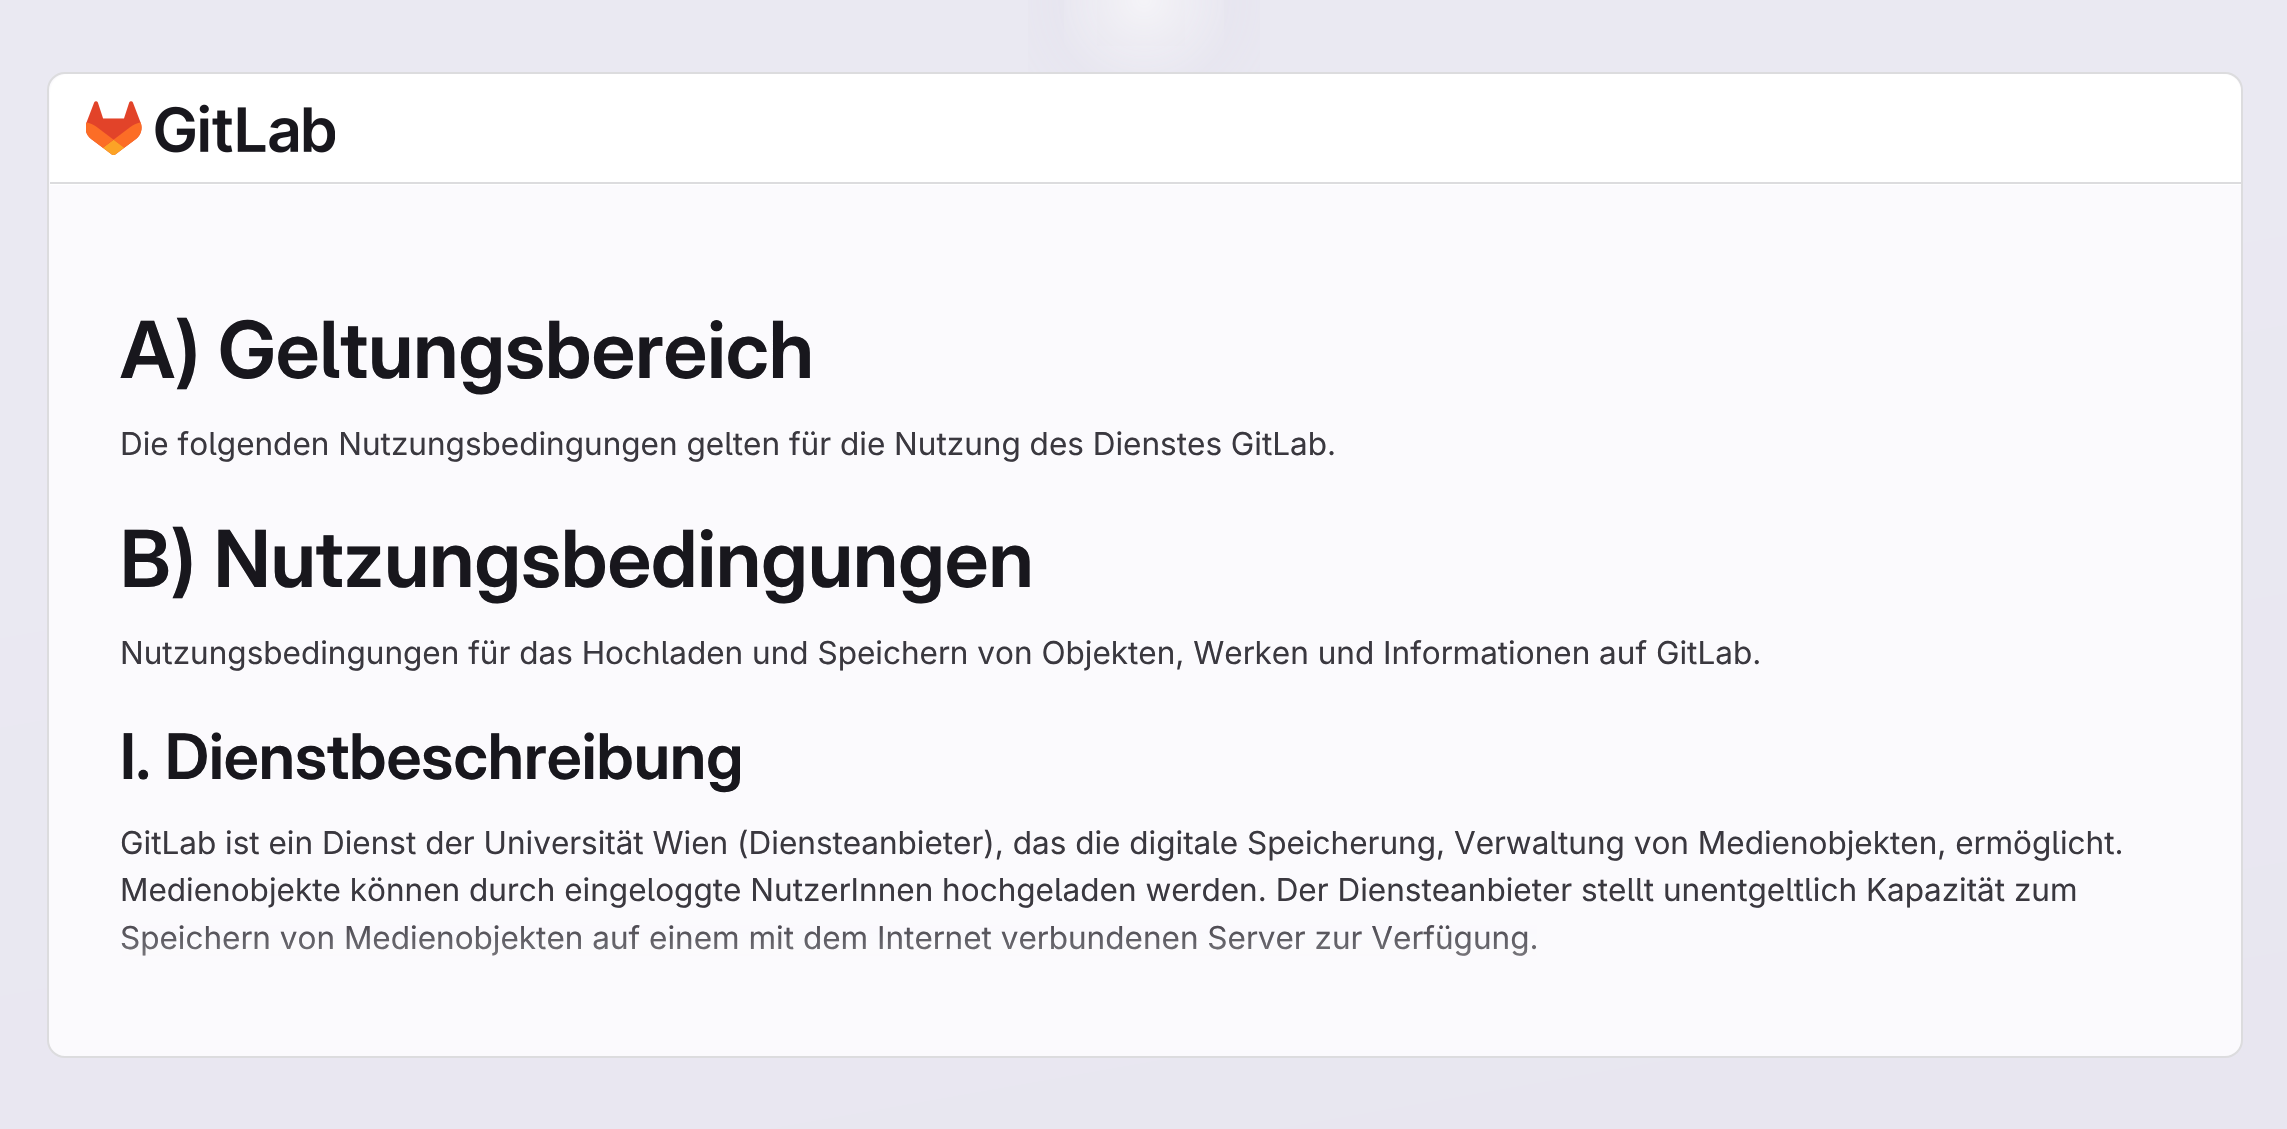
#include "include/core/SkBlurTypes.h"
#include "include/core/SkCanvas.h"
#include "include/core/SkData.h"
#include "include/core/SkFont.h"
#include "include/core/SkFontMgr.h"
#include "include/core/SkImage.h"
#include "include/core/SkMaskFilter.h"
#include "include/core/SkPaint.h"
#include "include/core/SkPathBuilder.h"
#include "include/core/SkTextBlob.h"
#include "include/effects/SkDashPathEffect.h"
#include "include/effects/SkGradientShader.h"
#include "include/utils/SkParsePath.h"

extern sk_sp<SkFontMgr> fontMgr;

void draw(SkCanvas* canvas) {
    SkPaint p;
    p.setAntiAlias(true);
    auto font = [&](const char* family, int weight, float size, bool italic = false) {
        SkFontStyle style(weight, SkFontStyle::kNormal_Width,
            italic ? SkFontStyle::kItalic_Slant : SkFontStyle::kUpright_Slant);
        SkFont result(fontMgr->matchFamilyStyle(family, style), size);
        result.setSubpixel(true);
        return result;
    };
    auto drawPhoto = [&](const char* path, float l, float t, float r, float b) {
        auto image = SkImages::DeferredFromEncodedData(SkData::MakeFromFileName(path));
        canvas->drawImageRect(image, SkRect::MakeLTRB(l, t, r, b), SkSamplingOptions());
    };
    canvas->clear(0xFFFFFFFF);
    {
        const SkColor colors[] = {0xFFE8E6F0, 0xFFEAE9F2};
        const float stops[] = {0, 0.7f};
        const SkPoint ends[] = {{1275, 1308}, {1013, -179}};
        p.setShader(SkGradientShader::MakeLinear(ends, colors, stops, 2, SkTileMode::kClamp));
        p.setAlpha(255);
    }
    canvas->drawRect(SkRect::MakeLTRB(0, 0, 2287, 1129), p);
    {
        const SkColor colors[] = {0xFFE4E2ED, 0x00E4E2ED};
        const float stops[] = {0, 0.14f};
        SkMatrix m = SkMatrix::Translate(1144, 0).preScale(1144, 1130);
        p.setShader(SkGradientShader::MakeRadial({0, 0}, 1, colors, stops, 2, SkTileMode::kClamp, 0, &m));
        p.setAlpha(255);
    }
    canvas->drawRect(SkRect::MakeLTRB(1028, 0, 1260, 72), p);
    {
        const SkColor colors[] = {0xFFE4E2EC, 0x00E4E2EC};
        const float stops[] = {0, 0.1f};
        SkMatrix m = SkMatrix::Translate(1144, 0).preScale(1144, 1130);
        p.setShader(SkGradientShader::MakeRadial({0, 0}, 1, colors, stops, 2, SkTileMode::kClamp, 0, &m));
        p.setAlpha(255);
    }
    canvas->drawRect(SkRect::MakeLTRB(1097, 0, 1185, 46), p);
    {
        const SkColor colors[] = {0x99FFFFFF, 0x00FFFFFF};
        const float stops[] = {0, 0.06f};
        p.setShader(SkGradientShader::MakeRadial({1144, 0}, 1608, colors, stops, 2, SkTileMode::kClamp));
        p.setAlpha(255);
    }
    canvas->drawRect(SkRect::MakeLTRB(1064, 0, 1224, 72), p);
    p.setShader(nullptr);
    p.setColor(0xFFFBFAFD);
    canvas->drawRoundRect(SkRect::MakeLTRB(48, 73, 2242, 1057), 17, 17, p);
    p.setStyle(SkPaint::kStroke_Style);
    p.setStrokeWidth(2);
    p.setColor(0xFFDCDCDE);
    canvas->drawRoundRect(SkRect::MakeLTRB(48, 73, 2242, 1057), 17, 17, p);
    p.setStyle(SkPaint::kFill_Style);
    p.setColor(0xFFFFFFFF);
    canvas->drawPath(SkPathBuilder().moveTo(68, 74).lineTo(2223, 74).cubicTo(2233, 74, 2241, 82, 2241, 92).lineTo(2241, 185).lineTo(50, 185).lineTo(50, 92).cubicTo(50, 82, 58, 74, 68, 74).close().detach(), p);
    p.setColor(0xFFDCDCDE);
    canvas->drawRect(SkRect::MakeLTRB(50, 182, 2241, 184), p);
    drawPhoto("media/1.png", 86, 101, 335, 155);
    auto font1 = font("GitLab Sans", 600, 78.75f);
    p.setColor(0xFF18171D);
    canvas->drawString("A) Geltungsbereich", 120, 378, font1, p);
    auto font2 = font("GitLab Sans", 400, 31.5f);
    p.setColor(0xFF3A383F);
    canvas->drawString("Die folgenden Nutzungsbedingungen gelten für die Nutzung des Dienstes GitLab.", 120, 455, font2, p);
    p.setColor(0xFF18171D);
    canvas->drawString("B) Nutzungsbedingungen", 120, 587, font1, p);
    p.setColor(0xFF3A383F);
    canvas->drawString("Nutzungsbedingungen für das Hochladen und Speichern von Objekten, Werken und Informationen auf GitLab.", 120, 664, font2, p);
    auto font3 = font("GitLab Sans", 600, 63);
    p.setColor(0xFF18171D);
    canvas->drawString("I. Dienstbeschreibung", 120, 779, font3, p);
    p.setColor(0xFF3A383F);
    {
        const struct { const char* s; float x, y; } items[] = {
            {"GitLab ist ein Dienst der Universität Wien (Diensteanbieter), das die digitale Speicherung, Verwaltung von Medienobjekten, ermöglicht.", 120, 854},
            {"Medienobjekte können durch eingeloggte NutzerInnen hochgeladen werden. Der Diensteanbieter stellt unentgeltlich Kapazität zum", 120, 901},
            {"Speichern von Medienobjekten auf einem mit dem Internet verbundenen Server zur Verfügung.", 120, 949},
        };
        for (auto [s, x, y] : items) {
            canvas->drawString(s, x, y, font2, p);
        }
    }
    {
        const SkColor colors[] = {0x00FBFAFD, 0xFFFBFAFD};
        const float stops[] = {0, 1};
        const SkPoint ends[] = {{1145, 911}, {1145, 1055}};
        p.setShader(SkGradientShader::MakeLinear(ends, colors, stops, 2, SkTileMode::kClamp));
        p.setAlpha(255);
    }
    canvas->drawRect(SkRect::MakeLTRB(122, 925, 1537, 956), p);
}
